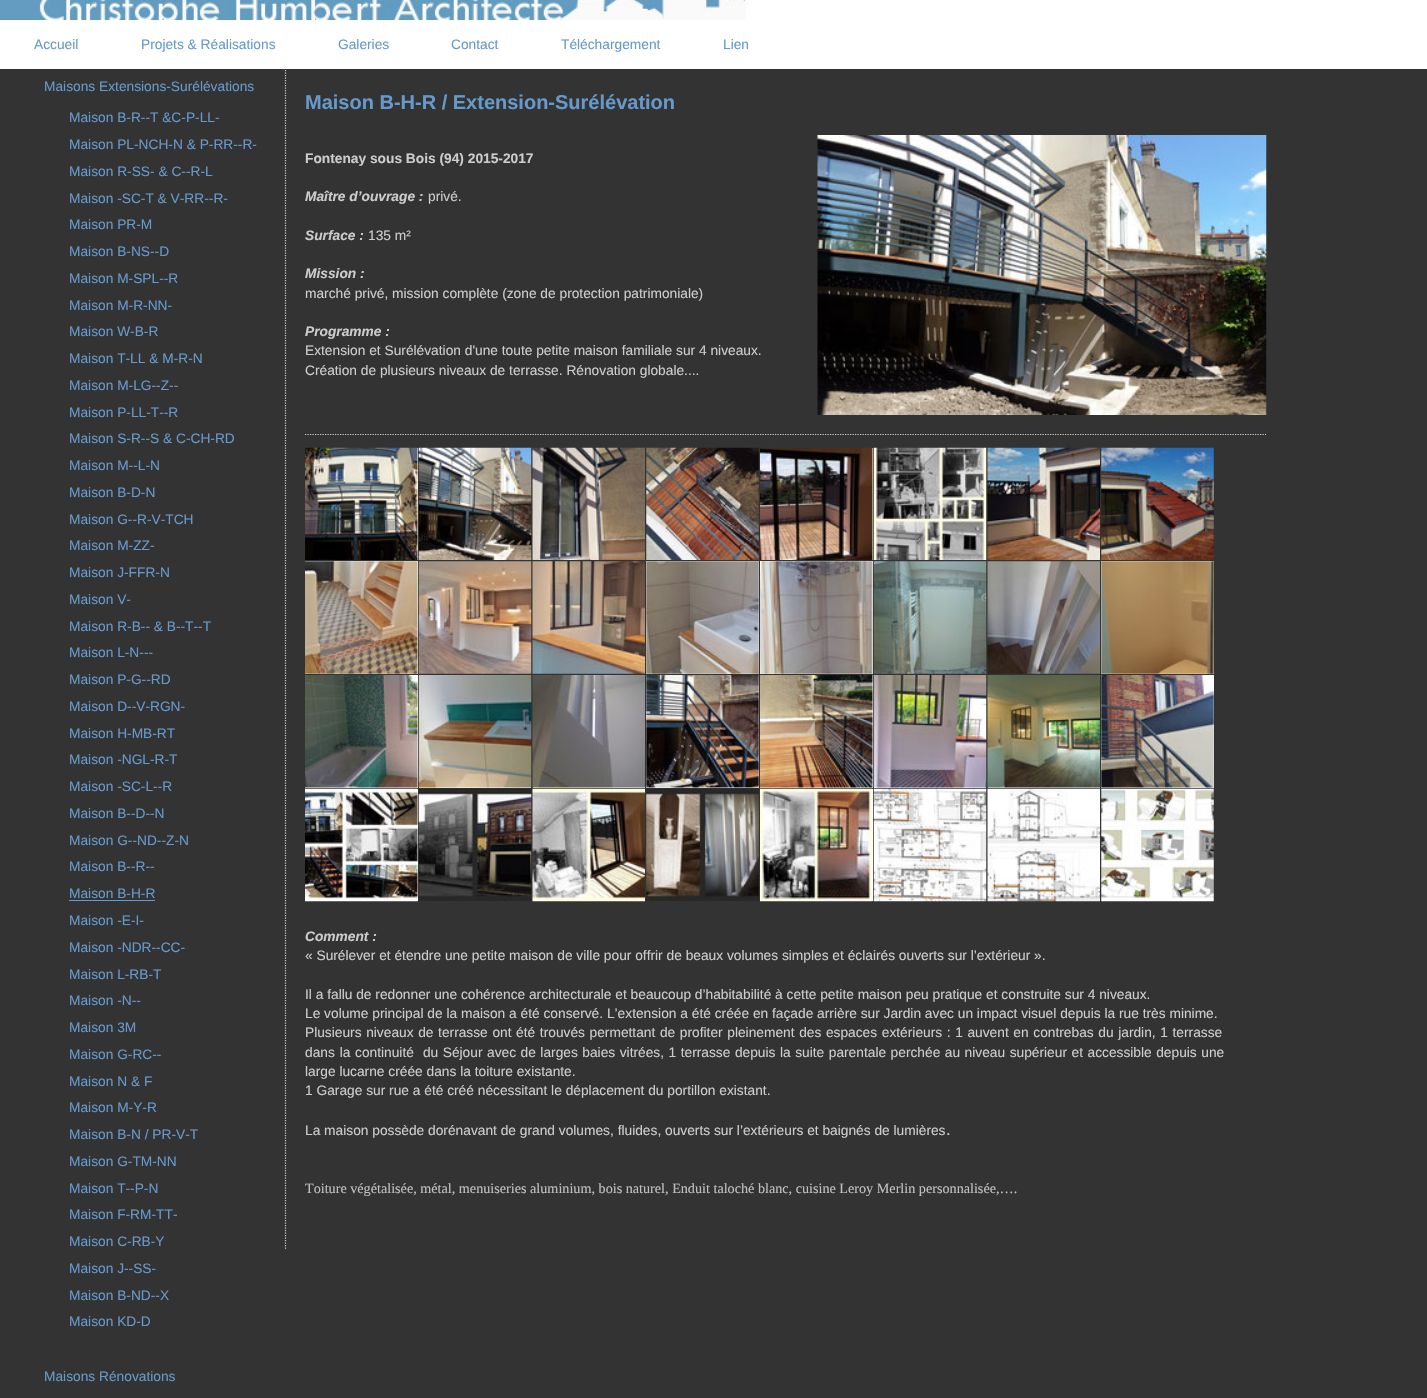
#include "include/core/SkBlurTypes.h"
#include "include/core/SkCanvas.h"
#include "include/core/SkData.h"
#include "include/core/SkFont.h"
#include "include/core/SkFontMgr.h"
#include "include/core/SkImage.h"
#include "include/core/SkMaskFilter.h"
#include "include/core/SkPaint.h"
#include "include/core/SkPathBuilder.h"
#include "include/core/SkTextBlob.h"
#include "include/effects/SkDashPathEffect.h"
#include "include/effects/SkGradientShader.h"
#include "include/utils/SkParsePath.h"

extern sk_sp<SkFontMgr> fontMgr;

void draw(SkCanvas* canvas) {
    SkPaint p;
    p.setAntiAlias(true);
    auto font = [&](const char* family, int weight, float size, bool italic = false) {
        SkFontStyle style(weight, SkFontStyle::kNormal_Width,
            italic ? SkFontStyle::kItalic_Slant : SkFontStyle::kUpright_Slant);
        SkFont result(fontMgr->matchFamilyStyle(family, style), size);
        result.setSubpixel(true);
        return result;
    };
    auto drawTracked = [&](const char* s, float x, float y, const SkFont& font, const SkPaint& ink, float letter, float word) {
        std::vector<SkGlyphID> glyphs(font.countText(s, strlen(s), SkTextEncoding::kUTF8));
        std::vector<float> xs(glyphs.size());
        font.textToGlyphs(s, strlen(s), SkTextEncoding::kUTF8, glyphs);
        font.getXPos(glyphs, xs, x);
        float extra = 0;
        for (size_t i = 0; i < glyphs.size(); i++) {
            xs[i] += extra;
            extra += letter + word * (glyphs[i] == font.unicharToGlyph(' '));
        }
        canvas->drawTextBlob(SkTextBlob::MakeFromPosHGlyphs(glyphs, xs, y, font), 0, 0, ink);
    };
    auto drawPhoto = [&](const char* path, float l, float t, float r, float b) {
        auto image = SkImages::DeferredFromEncodedData(SkData::MakeFromFileName(path));
        canvas->drawImageRect(image, SkRect::MakeLTRB(l, t, r, b), SkSamplingOptions());
    };
    canvas->clear(0xFF333333);
    p.setColor(0xFFFFFFFF);
    canvas->drawRect(SkRect::MakeLTRB(1135, 0, 1427, 20), p);
    drawPhoto("media/1.png", 0, 0, 1135, 20);
    canvas->drawRect(SkRect::MakeLTRB(0, 20, 1427, 69), p);
    auto font1 = font("Liberation Sans", 400, 13.75f);
    p.setColor(0xFF6699CC);
    {
        const struct { const char* s; float x, y; } items[] = {
            {"Accueil", 34, 49},
            {"Projets & Réalisations", 141, 49},
            {"Galeries", 338, 49},
            {"Contact", 451, 49},
            {"Téléchargement", 561, 49},
            {"Lien", 723, 49},
            {"Maisons Extensions-Surélévations", 44, 91},
            {"Maison B-R--T &C-P-LL-", 69, 122},
            {"Maison PL-NCH-N & P-RR--R-", 69, 149},
            {"Maison R-SS- & C--R-L", 69, 176},
            {"Maison -SC-T & V-RR--R-", 69, 203},
            {"Maison PR-M", 69, 229},
            {"Maison B-NS--D", 69, 256},
            {"Maison M-SPL--R", 69, 283},
            {"Maison M-R-NN-", 69, 310},
            {"Maison W-B-R", 69, 336},
            {"Maison T-LL & M-R-N", 69, 363},
            {"Maison M-LG--Z--", 69, 390},
            {"Maison P-LL-T--R", 69, 417},
            {"Maison S-R--S & C-CH-RD", 69, 443},
            {"Maison M--L-N", 69, 470},
            {"Maison B-D-N", 69, 497},
            {"Maison G--R-V-TCH", 69, 524},
            {"Maison M-ZZ-", 69, 550},
            {"Maison J-FFR-N", 69, 577},
            {"Maison V-", 69, 604},
            {"Maison R-B-- & B--T--T", 69, 631},
            {"Maison L-N---", 69, 657},
            {"Maison P-G--RD", 69, 684},
            {"Maison D--V-RGN-", 69, 711},
            {"Maison H-MB-RT", 69, 738},
            {"Maison -NGL-R-T", 69, 764},
            {"Maison -SC-L--R", 69, 791},
            {"Maison B--D--N", 69, 818},
            {"Maison G--ND--Z-N", 69, 845},
            {"Maison B--R--", 69, 871},
            {"Maison B-H-R", 69, 898},
        };
        for (auto [s, x, y] : items) {
            canvas->drawString(s, x, y, font1, p);
        }
    }
    canvas->drawRect(SkRect::MakeLTRB(69, 900, 155, 901), p);
    {
        const struct { const char* s; float x, y; } items[] = {
            {"Maison -E-I-", 69, 925},
            {"Maison -NDR--CC-", 69, 952},
            {"Maison L-RB-T", 69, 979},
            {"Maison -N--", 69, 1005},
            {"Maison 3M", 69, 1032},
            {"Maison G-RC--", 69, 1059},
            {"Maison N & F", 69, 1086},
            {"Maison M-Y-R", 69, 1112},
            {"Maison B-N / PR-V-T", 69, 1139},
            {"Maison G-TM-NN", 69, 1166},
            {"Maison T--P-N", 69, 1193},
            {"Maison F-RM-TT-", 69, 1219},
            {"Maison C-RB-Y", 69, 1246},
            {"Maison J--SS-", 69, 1273},
            {"Maison B-ND--X", 69, 1300},
            {"Maison KD-D", 69, 1326},
            {"Maisons Rénovations", 44, 1381},
        };
        for (auto [s, x, y] : items) {
            canvas->drawString(s, x, y, font1, p);
        }
    }
    p.setStyle(SkPaint::kStroke_Style);
    p.setStrokeWidth(1.2f);
    p.setColor(0xFFCCCCCC);
    p.setPathEffect(SkDashPathEffect::Make({{1.25f, 1.25f}}, 0));
    canvas->drawPath(SkPathBuilder().moveTo(285.5f, 70).lineTo(285.5f, 1249).detach(), p);
    p.setPathEffect(nullptr);
    auto font2 = font("Liberation Sans", 700, 20);
    p.setStyle(SkPaint::kFill_Style);
    p.setColor(0xFF6699CC);
    canvas->drawString("Maison B-H-R / Extension-Surélévation", 305, 109, font2, p);
    auto font3 = font("Liberation Sans", 700, 13.75f);
    p.setColor(0xFFCCCCCC);
    canvas->drawString("Fontenay sous Bois (94) 2015-2017", 305, 163, font3, p);
    auto font4 = font("Liberation Sans", 700, 13.75f, true);
    canvas->drawString("Maître d’ouvrage :", 305, 201, font4, p);
    canvas->drawString("privé.", 428, 201, font1, p);
    canvas->drawString("Surface :", 305, 240, font4, p);
    canvas->drawString("135 m²", 368, 240, font1, p);
    canvas->drawString("Mission :", 305, 278, font4, p);
    canvas->drawString("marché privé, mission complète (zone de protection patrimoniale)", 305, 298, font1, p);
    canvas->drawString("Programme :", 305, 336, font4, p);
    canvas->drawString("Extension et Surélévation d'une toute petite maison familiale sur 4 niveaux.", 305, 355, font1, p);
    canvas->drawString("Création de plusieurs niveaux de terrasse. Rénovation globale....", 305, 375, font1, p);
    drawPhoto("media/2.png", 817, 135, 1267, 415);
    p.setStyle(SkPaint::kStroke_Style);
    p.setPathEffect(SkDashPathEffect::Make({{1.25f, 1.25f}}, 0));
    canvas->drawPath(SkPathBuilder().moveTo(305, 434.5f).lineTo(1266, 434.5f).detach(), p);
    p.setPathEffect(nullptr);
    p.setStyle(SkPaint::kFill_Style);
    p.setColor(0xFFFFFFFF);
    canvas->drawRect(SkRect::MakeLTRB(417, 448, 418, 560), p);
    drawPhoto("media/3.png", 305, 447, 418, 560);
    drawPhoto("media/4.png", 418, 447, 532, 560);
    drawPhoto("media/5.png", 532, 447, 645, 560);
    drawPhoto("media/6.png", 646, 447, 759, 560);
    canvas->drawRect(SkRect::MakeLTRB(872, 448, 873, 560), p);
    drawPhoto("media/7.png", 760, 447, 873, 560);
    drawPhoto("media/8.png", 873, 447, 987, 560);
    drawPhoto("media/9.png", 987, 447, 1100, 560);
    drawPhoto("media/10.png", 1101, 447, 1214, 560);
    canvas->drawRect(SkRect::MakeLTRB(305, 561, 418, 674), p);
    drawPhoto("media/11.png", 305, 561, 418, 674);
    drawPhoto("media/12.png", 418, 561, 532, 674);
    drawPhoto("media/13.png", 532, 561, 645, 674);
    canvas->drawRect(SkRect::MakeLTRB(646, 561, 759, 674), p);
    drawPhoto("media/14.png", 646, 561, 759, 674);
    canvas->drawRect(SkRect::MakeLTRB(760, 561, 873, 674), p);
    drawPhoto("media/15.png", 760, 561, 873, 674);
    drawPhoto("media/16.png", 873, 561, 987, 674);
    drawPhoto("media/17.png", 987, 561, 1100, 674);
    canvas->drawRect(SkRect::MakeLTRB(1101, 561, 1214, 674), p);
    drawPhoto("media/18.png", 1101, 561, 1214, 674);
    canvas->drawRect(SkRect::MakeLTRB(305, 675, 418, 788), p);
    drawPhoto("media/19.png", 305, 675, 418, 788);
    canvas->drawRect(SkRect::MakeLTRB(419, 787, 531, 788), p);
    drawPhoto("media/20.png", 418, 675, 532, 788);
    canvas->drawRect(SkRect::MakeLTRB(533, 787, 645, 788), p);
    drawPhoto("media/21.png", 532, 675, 645, 788);
    canvas->drawRect(SkRect::MakeLTRB(646, 675, 759, 788), p);
    drawPhoto("media/22.png", 646, 675, 759, 788);
    canvas->drawRect(SkRect::MakeLTRB(760, 675, 873, 788), p);
    drawPhoto("media/23.png", 760, 675, 873, 788);
    canvas->drawRect(SkRect::MakeLTRB(874, 787, 986, 788), p);
    drawPhoto("media/24.png", 873, 675, 987, 788);
    canvas->drawRect(SkRect::MakeLTRB(988, 787, 1100, 788), p);
    drawPhoto("media/25.png", 987, 675, 1100, 788);
    canvas->drawRect(SkRect::MakeLTRB(1101, 675, 1214, 788), p);
    drawPhoto("media/26.png", 1101, 675, 1214, 788);
    canvas->drawRect(SkRect::MakeLTRB(417, 789, 418, 901), p);
    drawPhoto("media/27.png", 305, 788, 418, 902);
    drawPhoto("media/28.png", 418, 788, 532, 901);
    drawPhoto("media/29.png", 532, 788, 645, 902);
    drawPhoto("media/30.png", 646, 788, 759, 901);
    canvas->drawRect(SkRect::MakeLTRB(872, 789, 873, 901), p);
    drawPhoto("media/31.png", 760, 788, 873, 902);
    drawPhoto("media/32.png", 873, 788, 987, 902);
    drawPhoto("media/33.png", 987, 788, 1100, 902);
    drawPhoto("media/34.png", 1101, 788, 1214, 902);
    p.setColor(0xFFCCCCCC);
    canvas->drawString("Comment :", 305, 941, font4, p);
    {
        const struct { const char* s; float x, y; } items[] = {
            {"« Surélever et étendre une petite maison de ville pour offrir de beaux volumes simples et éclairés ouverts sur l’extérieur ».", 305, 960},
            {"Il a fallu de redonner une cohérence architecturale et beaucoup d’habitabilité à cette petite maison peu pratique et construite sur 4 niveaux.", 305, 999},
            {"Le volume principal de la maison a été conservé. L’extension a été créée en façade arrière sur Jardin avec un impact visuel depuis la rue très minime.", 305, 1018},
        };
        for (auto [s, x, y] : items) {
            canvas->drawString(s, x, y, font1, p);
        }
    }
    drawTracked("Plusieurs niveaux de terrasse ont été trouvés permettant de profiter pleinement des espaces extérieurs : 1 auvent en contrebas du jardin, 1 terrasse", 305, 1037, font1, p, 0, 0.8f);
    drawTracked("dans la", 305, 1057, font1, p, 0, 1);
    drawTracked("continuité  du Séjour avec de larges baies vitrées, 1 terrasse depuis la suite parentale perchée au niveau supérieur et accessible depuis une", 355, 1057, font1, p, 0, 0.7f);
    {
        const struct { const char* s; float x, y; } items[] = {
            {"large lucarne créée dans la toiture existante.", 305, 1076},
            {"1 Garage sur rue a été créé nécessitant le déplacement du portillon existant.", 305, 1095},
            {"La maison possède dorénavant de grand volumes, fluides, ouverts sur l’extérieurs et baignés de lumières", 305, 1135},
        };
        for (auto [s, x, y] : items) {
            canvas->drawString(s, x, y, font1, p);
        }
    }
    auto font5 = font("Liberation Sans", 400, 17);
    canvas->drawString(".", 946, 1135, font5, p);
    auto font6 = font("Liberation Serif", 400, 14.17f);
    p.setColor(0xFFC0C0C0);
    canvas->drawString("Toiture végétalisée, métal, menuiseries aluminium, bois naturel, Enduit taloché blanc, cuisine Leroy Merlin personnalisée,….", 305, 1193, font6, p);
}
